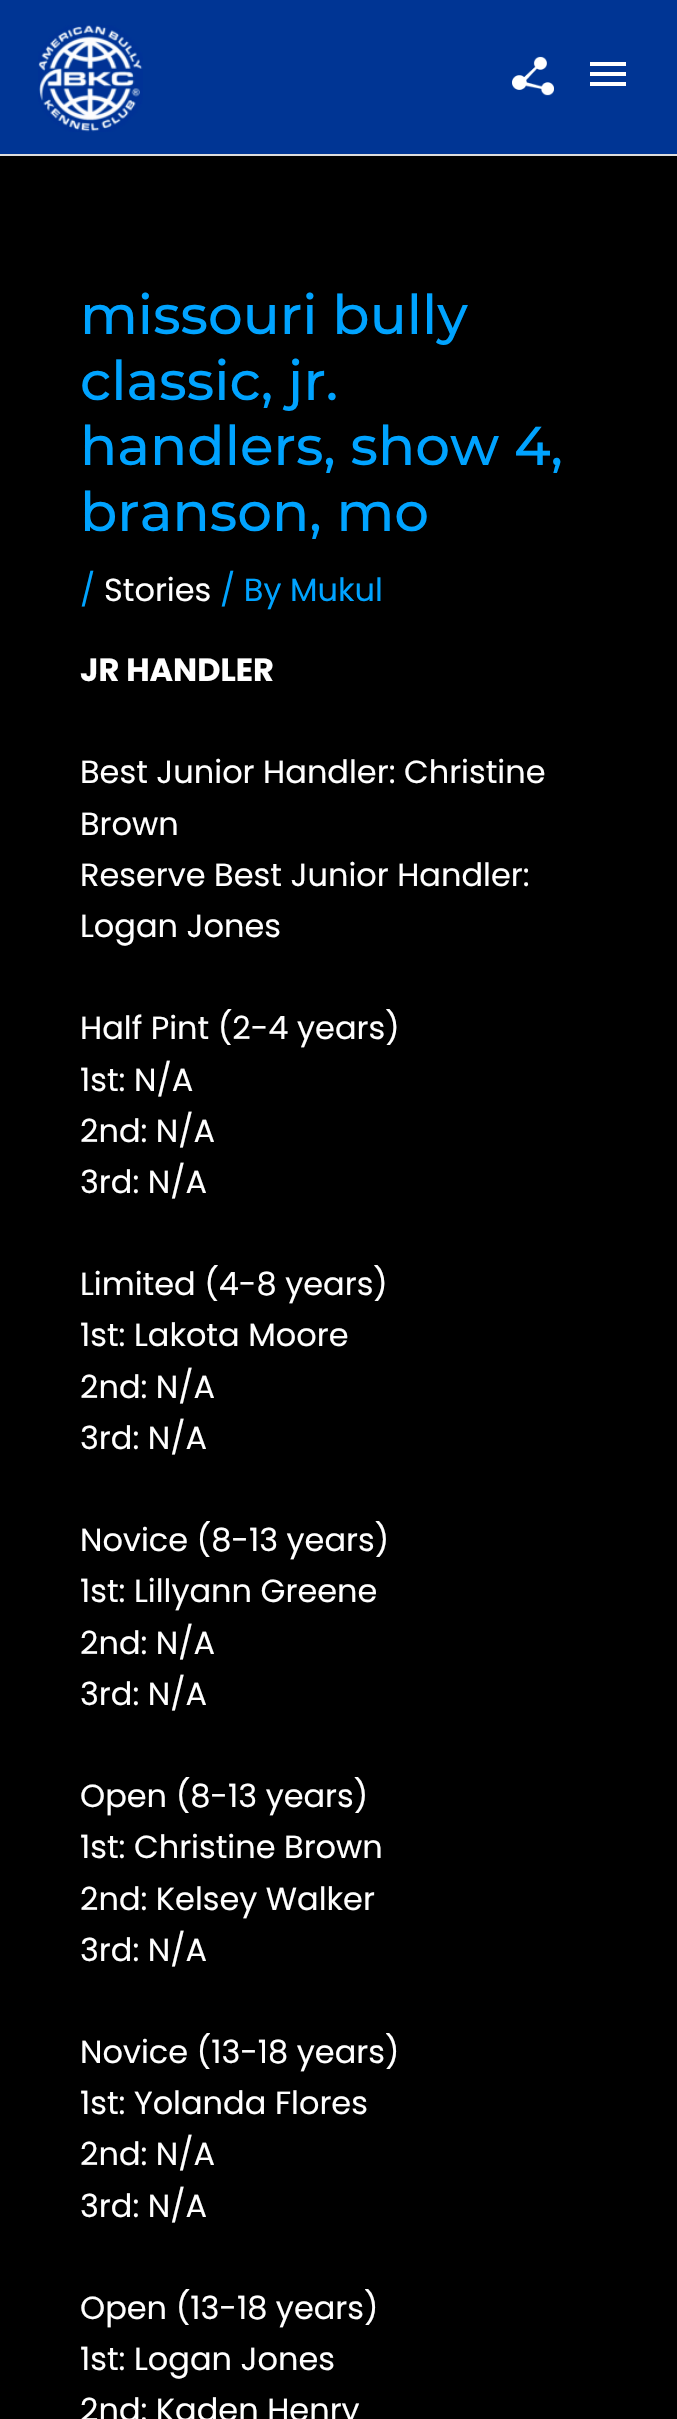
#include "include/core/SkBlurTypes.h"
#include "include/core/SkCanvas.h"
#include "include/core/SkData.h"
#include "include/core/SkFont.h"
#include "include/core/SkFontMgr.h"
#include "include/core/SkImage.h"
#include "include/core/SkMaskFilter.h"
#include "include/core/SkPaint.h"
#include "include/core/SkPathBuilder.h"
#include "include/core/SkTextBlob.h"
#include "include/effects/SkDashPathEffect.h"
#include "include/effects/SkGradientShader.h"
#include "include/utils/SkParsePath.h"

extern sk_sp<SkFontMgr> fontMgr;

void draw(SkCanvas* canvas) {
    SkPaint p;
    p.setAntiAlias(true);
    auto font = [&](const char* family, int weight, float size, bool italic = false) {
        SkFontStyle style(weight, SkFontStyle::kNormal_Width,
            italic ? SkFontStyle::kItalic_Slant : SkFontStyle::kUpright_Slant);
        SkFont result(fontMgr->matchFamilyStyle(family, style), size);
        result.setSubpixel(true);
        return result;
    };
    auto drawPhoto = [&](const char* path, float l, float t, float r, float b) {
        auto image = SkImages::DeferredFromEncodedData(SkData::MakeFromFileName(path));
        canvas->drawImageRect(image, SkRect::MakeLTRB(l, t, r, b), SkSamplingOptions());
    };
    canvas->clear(0xFF000000);
    p.setColor(0xFF003594);
    canvas->drawRect(SkRect::MakeLTRB(0, 0, 677, 154), p);
    p.setColor(0xFFDDDDDD);
    canvas->drawRect(SkRect::MakeLTRB(0, 154, 677, 156), p);
    drawPhoto("media/1.png", 38, 25, 143, 132);
    drawPhoto("media/2.png", 512, 56, 554, 96);
    p.setColor(0xFFFFFFFF);
    canvas->drawPath(SkPathBuilder().moveTo(590, 62).lineTo(626, 62).lineTo(626, 66).lineTo(590, 66).close().moveTo(590, 76).lineTo(590, 72).lineTo(626, 72).lineTo(626, 76).close().moveTo(590, 86).lineTo(590, 82).lineTo(626, 82).lineTo(626, 86).close().detach(), p);
    auto font1 = font("Montserrat", 500, 54.75f);
    p.setColor(0xFF00A3FF);
    {
        const struct { const char* s; float x, y; } items[] = {
            {"missouri bully", 80, 334},
            {"classic, jr.", 80, 400},
            {"handlers, show 4,", 80, 465},
            {"branson, mo", 80, 531},
        };
        for (auto [s, x, y] : items) {
            canvas->drawString(s, x, y, font1, p);
        }
    }
    auto font2 = font("Poppins", 400, 32);
    canvas->drawString("/", 80, 601, font2, p);
    p.setColor(0xFFFFFFFF);
    canvas->drawString("Stories", 104, 601, font2, p);
    p.setColor(0xFF00A3FF);
    canvas->drawString("/ By Mukul", 220, 601, font2, p);
    auto font3 = font("Poppins", 700, 32);
    p.setColor(0xFFFFFFFF);
    canvas->drawString("JR HANDLER", 80, 681, font3, p);
    {
        const struct { const char* s; float x, y; } items[] = {
            {"Best Junior Handler: Christine", 80, 783},
            {"Brown", 80, 835},
            {"Reserve Best Junior Handler:", 80, 886},
            {"Logan Jones", 80, 937},
            {"Half Pint (2-4 years)", 80, 1039},
            {"1st: N/A", 80, 1091},
            {"2nd: N/A", 80, 1142},
            {"3rd: N/A", 80, 1193},
            {"Limited (4-8 years)", 80, 1295},
            {"1st: Lakota Moore", 80, 1346},
            {"2nd: N/A", 80, 1398},
            {"3rd: N/A", 80, 1449},
            {"Novice (8-13 years)", 80, 1551},
            {"1st: Lillyann Greene", 80, 1602},
            {"2nd: N/A", 80, 1654},
            {"3rd: N/A", 80, 1705},
            {"Open (8-13 years)", 80, 1807},
            {"1st: Christine Brown", 80, 1858},
            {"2nd: Kelsey Walker", 80, 1910},
            {"3rd: N/A", 80, 1961},
            {"Novice (13-18 years)", 80, 2063},
            {"1st: Yolanda Flores", 80, 2114},
            {"2nd: N/A", 80, 2165},
            {"3rd: N/A", 80, 2217},
            {"Open (13-18 years)", 80, 2319},
            {"1st: Logan Jones", 80, 2370},
            {"2nd: Kaden Henry", 80, 2421},
        };
        for (auto [s, x, y] : items) {
            canvas->drawString(s, x, y, font2, p);
        }
    }
}
